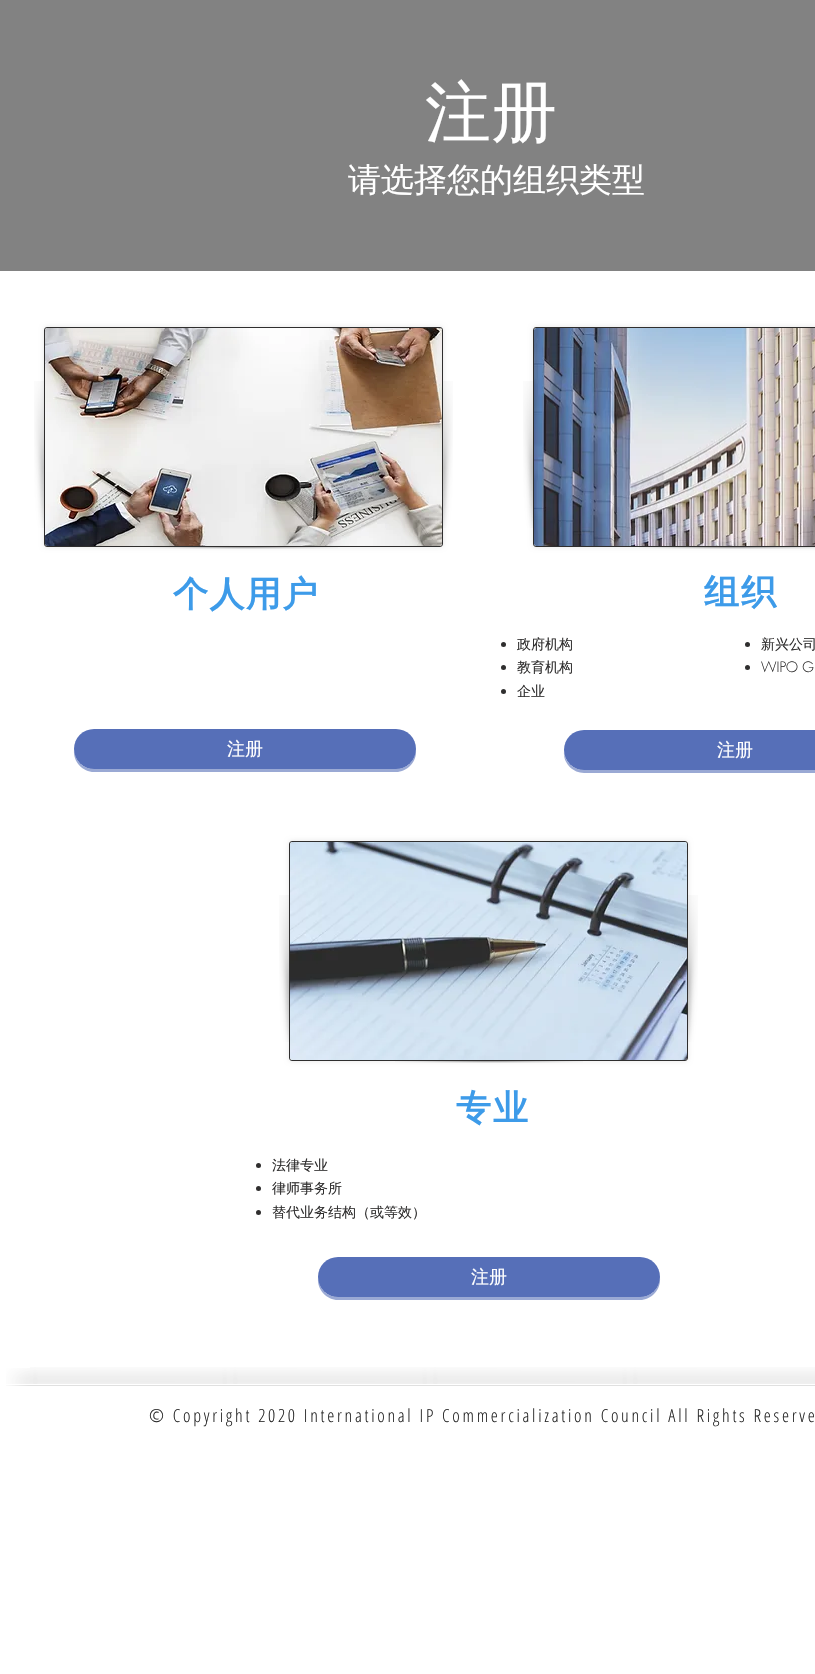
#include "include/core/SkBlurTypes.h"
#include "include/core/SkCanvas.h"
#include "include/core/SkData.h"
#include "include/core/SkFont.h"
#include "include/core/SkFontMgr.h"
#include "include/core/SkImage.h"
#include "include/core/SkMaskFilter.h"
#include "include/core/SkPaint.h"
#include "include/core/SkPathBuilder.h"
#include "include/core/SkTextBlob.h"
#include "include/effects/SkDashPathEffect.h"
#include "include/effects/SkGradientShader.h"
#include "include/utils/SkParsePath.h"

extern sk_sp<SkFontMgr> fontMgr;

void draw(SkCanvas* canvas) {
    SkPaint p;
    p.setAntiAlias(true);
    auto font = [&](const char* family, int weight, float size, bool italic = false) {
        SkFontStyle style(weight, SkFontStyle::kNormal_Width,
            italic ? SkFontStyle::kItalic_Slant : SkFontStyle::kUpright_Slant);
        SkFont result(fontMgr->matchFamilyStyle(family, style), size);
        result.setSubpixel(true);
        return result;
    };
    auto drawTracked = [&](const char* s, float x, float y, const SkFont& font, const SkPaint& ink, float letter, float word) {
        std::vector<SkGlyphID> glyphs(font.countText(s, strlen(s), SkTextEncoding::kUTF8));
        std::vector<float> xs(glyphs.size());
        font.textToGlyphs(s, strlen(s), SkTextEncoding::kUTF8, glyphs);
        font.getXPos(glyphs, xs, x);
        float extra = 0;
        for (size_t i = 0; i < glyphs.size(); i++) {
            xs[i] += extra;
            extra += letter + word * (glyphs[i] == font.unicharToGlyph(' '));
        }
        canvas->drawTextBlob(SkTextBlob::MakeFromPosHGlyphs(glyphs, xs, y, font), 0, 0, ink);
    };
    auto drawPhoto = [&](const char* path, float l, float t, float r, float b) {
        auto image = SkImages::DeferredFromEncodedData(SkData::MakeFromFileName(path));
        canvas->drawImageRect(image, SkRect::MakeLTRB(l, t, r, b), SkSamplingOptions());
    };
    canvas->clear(0xFFFFFFFF);
    p.setColor(0xFF828282);
    canvas->drawRect(SkRect::MakeLTRB(0, 0, 815, 271), p);
    auto font1 = font("WenQuanYi Zen Hei", 500, 66);
    p.setColor(0xFFFFFFFF);
    canvas->drawString("注册", 425, 135, font1, p);
    auto font2 = font("WenQuanYi Zen Hei", 500, 33);
    canvas->drawString("请选择您的组织类型", 348, 191, font2, p);
    p.setColor(0x1A000000);
    p.setMaskFilter(SkMaskFilter::MakeBlur(kNormal_SkBlurStyle, 2.5f));
    canvas->drawRoundRect(SkRect::MakeLTRB(44, 327, 443, 547), 3, 3, p);
    p.setMaskFilter(nullptr);
    p.setStyle(SkPaint::kStroke_Style);
    p.setStrokeWidth(1);
    p.setColor(0xFF2F2E2E);
    canvas->drawRoundRect(SkRect::MakeLTRB(44.5f, 327.5f, 442.5f, 546.5f), 2.5f, 2.5f, p);
    drawPhoto("media/1.png", 45, 328, 442, 546);
    drawPhoto("media/2.png", 150, 547, 338, 549);
    drawPhoto("media/3.png", 34, 381, 44, 528);
    drawPhoto("media/4.png", 443, 381, 453, 528);
    p.setStyle(SkPaint::kFill_Style);
    p.setColor(0x1A000000);
    p.setMaskFilter(SkMaskFilter::MakeBlur(kNormal_SkBlurStyle, 2.5f));
    canvas->drawRoundRect(SkRect::MakeLTRB(533, 327, 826, 547), 3, 3, p);
    p.setMaskFilter(nullptr);
    p.setStyle(SkPaint::kStroke_Style);
    p.setColor(0xFF2F2E2E);
    canvas->drawRoundRect(SkRect::MakeLTRB(533.5f, 327.5f, 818.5f, 546.5f), 2.5f, 2.5f, p);
    drawPhoto("media/5.png", 534, 328, 815, 546);
    drawPhoto("media/6.png", 639, 547, 815, 549);
    drawPhoto("media/3.png", 523, 381, 533, 528);
    auto font3 = font("WenQuanYi Zen Hei", 700, 35);
    p.setStyle(SkPaint::kFill_Style);
    p.setColor(0xFF3D9BE9);
    drawTracked("个人用户", 173, 606, font3, p, 1.5f, 0);
    p.setColor(0xFF9AA9D4);
    canvas->drawPath(SkPathBuilder().moveTo(74, 750).cubicTo(73, 762, 83, 772, 94, 772).lineTo(396, 772).cubicTo(407, 772, 417, 762, 416, 750).cubicTo(415, 761, 407, 769, 396, 769).lineTo(94, 769).cubicTo(83, 769, 75, 761, 74, 750).close().detach(), p);
    p.setColor(0xFF566FB8);
    canvas->drawRoundRect(SkRect::MakeLTRB(74, 729, 416, 769), 20, 20, p);
    auto font4 = font("WenQuanYi Zen Hei", 500, 18);
    p.setColor(0xFFFFFFFF);
    canvas->drawString("注册", 227, 755, font4, p);
    p.setColor(0xFF3D9BE9);
    drawTracked("组织", 704, 604, font3, p, 2, 0);
    p.setColor(0xFF2F2E2E);
    canvas->drawCircle(503.5f, 644.5f, 2.5f, p);
    auto font5 = font("WenQuanYi Zen Hei", 500, 14);
    canvas->drawString("政府机构", 517, 649, font5, p);
    canvas->drawCircle(503.5f, 667.5f, 2.5f, p);
    canvas->drawString("教育机构", 517, 672, font5, p);
    canvas->drawCircle(503.5f, 691.5f, 2.5f, p);
    canvas->drawString("企业", 517, 696, font5, p);
    canvas->drawCircle(747.5f, 644.5f, 2.5f, p);
    canvas->drawString("新兴公司", 761, 649, font5, p);
    canvas->drawCircle(747.5f, 667.5f, 2.5f, p);
    auto font6 = font("futura", 300, 14);
    canvas->drawString("WIPO G", 761, 672, font6, p);
    p.setColor(0xFF9AA9D4);
    canvas->drawPath(SkPathBuilder().moveTo(564, 752).cubicTo(563, 763, 573, 773, 584, 773).lineTo(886, 773).cubicTo(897, 773, 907, 763, 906, 752).cubicTo(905, 762, 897, 770, 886, 770).lineTo(584, 770).cubicTo(573, 770, 565, 762, 564, 752).close().detach(), p);
    p.setColor(0xFF566FB8);
    canvas->drawRoundRect(SkRect::MakeLTRB(564, 730, 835, 770), 20, 20, p);
    p.setColor(0xFFFFFFFF);
    canvas->drawString("注册", 717, 756, font4, p);
    p.setColor(0x1A000000);
    p.setMaskFilter(SkMaskFilter::MakeBlur(kNormal_SkBlurStyle, 2.5f));
    canvas->drawRoundRect(SkRect::MakeLTRB(289, 841, 688, 1061), 3, 3, p);
    p.setMaskFilter(nullptr);
    p.setStyle(SkPaint::kStroke_Style);
    p.setColor(0xFF2F2E2E);
    canvas->drawRoundRect(SkRect::MakeLTRB(289.5f, 841.5f, 687.5f, 1060.5f), 2.5f, 2.5f, p);
    drawPhoto("media/7.png", 290, 842, 687, 1060);
    drawPhoto("media/2.png", 395, 1061, 583, 1063);
    drawPhoto("media/3.png", 279, 895, 289, 1042);
    drawPhoto("media/4.png", 688, 895, 698, 1042);
    p.setStyle(SkPaint::kFill_Style);
    p.setColor(0xFF3D9BE9);
    drawTracked("专业", 456, 1120, font3, p, 2, 0);
    p.setColor(0xFF2F2E2E);
    canvas->drawCircle(258.5f, 1165.5f, 2.5f, p);
    canvas->drawString("法律专业", 272, 1170, font5, p);
    canvas->drawCircle(258.5f, 1188.5f, 2.5f, p);
    canvas->drawString("律师事务所", 272, 1193, font5, p);
    canvas->drawCircle(258.5f, 1212.5f, 2.5f, p);
    canvas->drawString("替代业务结构（或等效）", 272, 1217, font5, p);
    p.setColor(0xFF9AA9D4);
    canvas->drawPath(SkPathBuilder().moveTo(318, 1278).cubicTo(317, 1290, 327, 1300, 338, 1300).lineTo(640, 1300).cubicTo(651, 1300, 661, 1290, 660, 1278).cubicTo(659, 1289, 651, 1297, 640, 1297).lineTo(338, 1297).cubicTo(327, 1297, 319, 1289, 318, 1278).close().detach(), p);
    p.setColor(0xFF566FB8);
    canvas->drawRoundRect(SkRect::MakeLTRB(318, 1257, 660, 1297), 20, 20, p);
    p.setColor(0xFFFFFFFF);
    canvas->drawString("注册", 471, 1283, font4, p);
    drawPhoto("media/8.png", 6, 1368, 30, 1386);
    drawPhoto("media/9.png", 30, 1367, 815, 1386);
    auto font7 = font("Open Sans Condensed", 300, 18);
    p.setColor(0xFF292929);
    drawTracked("© Copyright 2020 International IP Commercialization Council All Rights Reserve", 149, 1422, font7, p, 2.7f, 0);
}
